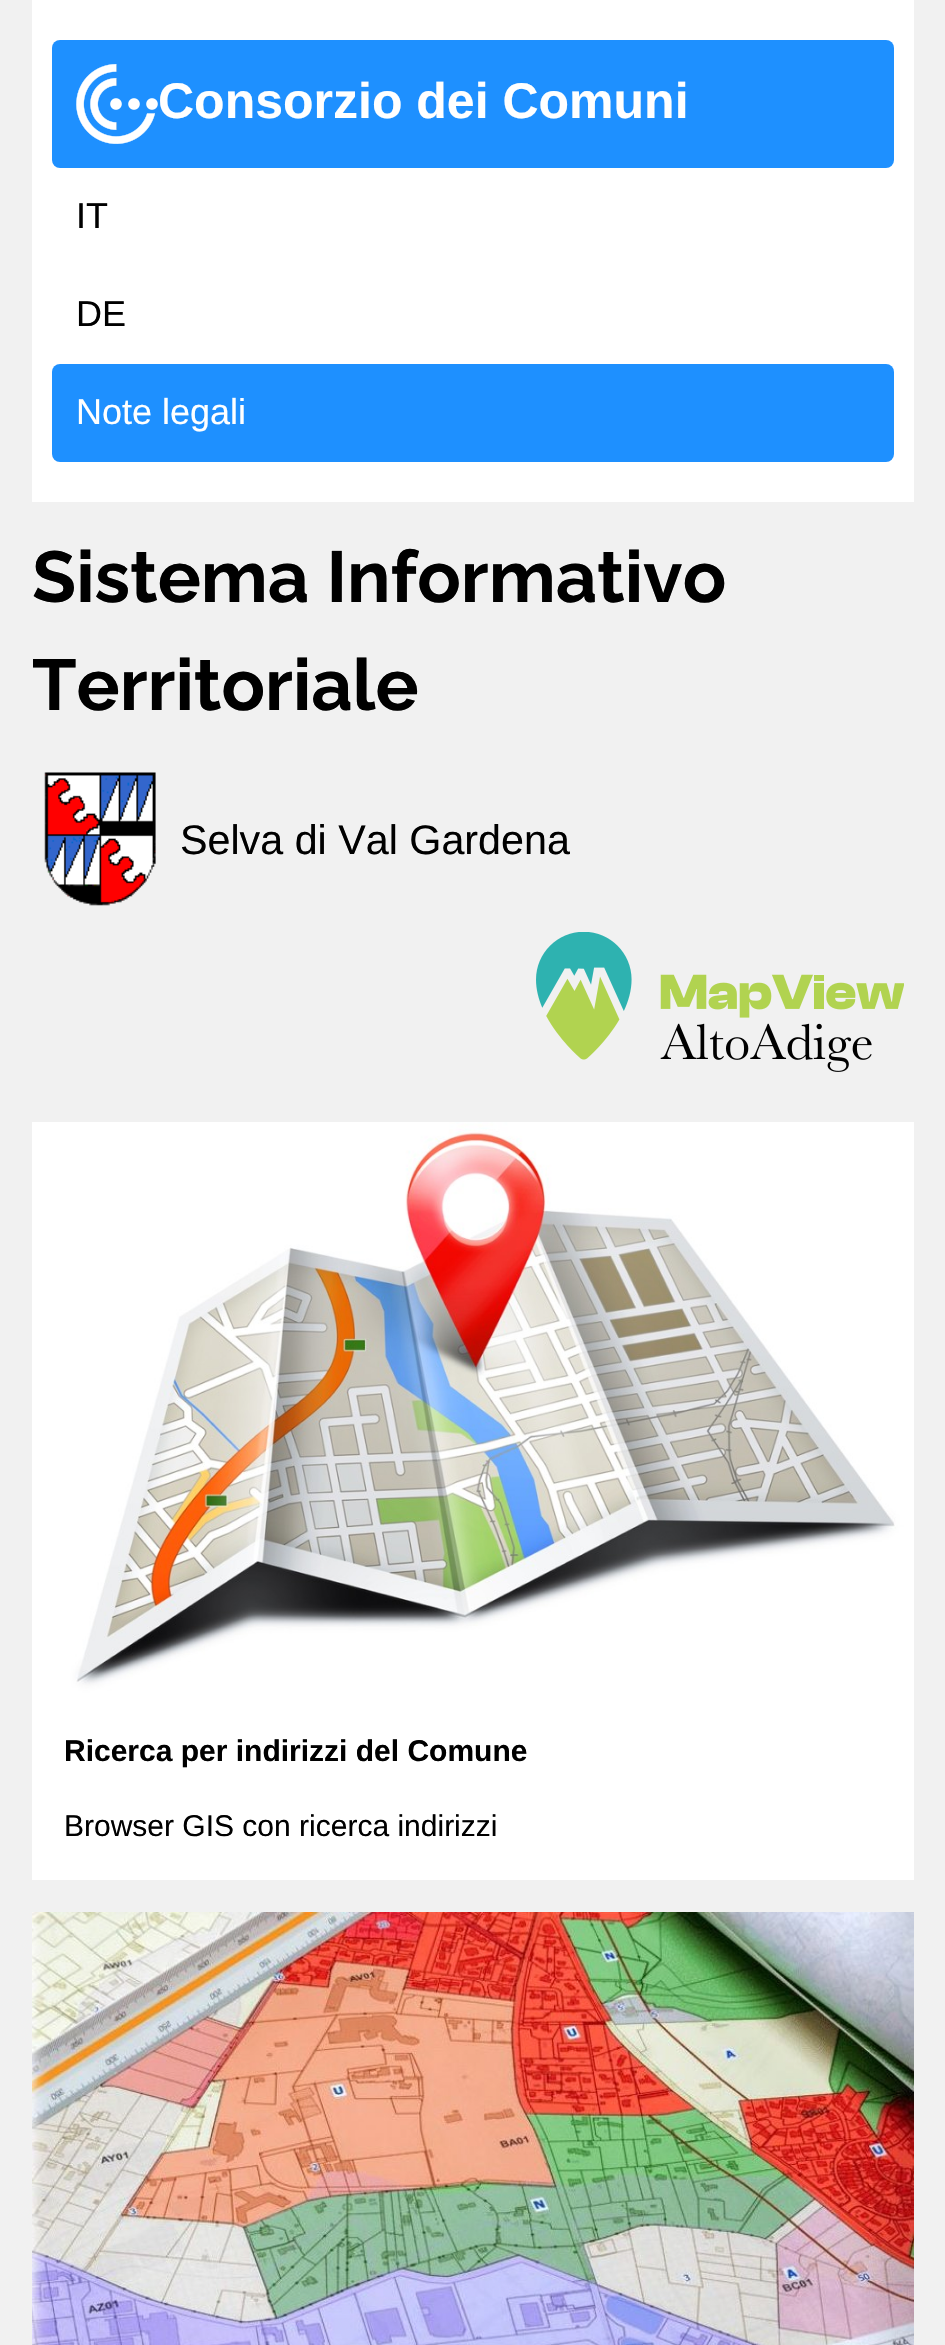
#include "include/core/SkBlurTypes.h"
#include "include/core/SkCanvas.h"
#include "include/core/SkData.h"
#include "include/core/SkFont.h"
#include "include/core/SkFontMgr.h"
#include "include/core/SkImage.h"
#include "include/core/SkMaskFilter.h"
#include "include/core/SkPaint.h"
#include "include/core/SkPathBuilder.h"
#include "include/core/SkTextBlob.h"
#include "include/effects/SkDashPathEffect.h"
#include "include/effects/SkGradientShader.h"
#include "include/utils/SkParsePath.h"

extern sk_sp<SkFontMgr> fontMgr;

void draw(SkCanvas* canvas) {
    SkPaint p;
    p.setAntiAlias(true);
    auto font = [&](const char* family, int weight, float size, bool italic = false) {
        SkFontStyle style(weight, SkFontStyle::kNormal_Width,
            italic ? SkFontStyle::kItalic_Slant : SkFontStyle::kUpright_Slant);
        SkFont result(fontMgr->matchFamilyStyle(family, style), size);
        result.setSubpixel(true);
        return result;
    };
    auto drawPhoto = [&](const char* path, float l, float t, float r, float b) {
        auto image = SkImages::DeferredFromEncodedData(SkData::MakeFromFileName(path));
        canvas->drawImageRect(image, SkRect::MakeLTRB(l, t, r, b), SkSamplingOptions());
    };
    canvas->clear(0xFFF1F1F1);
    p.setColor(0xFFFFFFFF);
    canvas->drawRect(SkRect::MakeLTRB(32, 0, 914, 502), p);
    p.setColor(0xFF1E90FF);
    canvas->drawRoundRect(SkRect::MakeLTRB(52, 40, 894, 168), 8, 8, p);
    drawPhoto("media/1.png", 76, 64, 158, 144);
    auto font1 = font("Liberation Sans", 700, 50);
    p.setColor(0xFFFFFFFF);
    canvas->drawString("Consorzio dei Comuni", 158, 118, font1, p);
    auto font2 = font("Liberation Sans", 400, 36);
    p.setColor(0xFF000000);
    canvas->drawString("IT", 76, 228, font2, p);
    canvas->drawString("DE", 76, 326, font2, p);
    p.setColor(0xFF1E90FF);
    canvas->drawRoundRect(SkRect::MakeLTRB(52, 364, 894, 462), 8, 8, p);
    p.setColor(0xFFFFFFFF);
    canvas->drawString("Note legali", 76, 424, font2, p);
    auto font3 = font("Raleway", 700, 72);
    p.setColor(0xFF000000);
    canvas->drawString("Sistema Informativo", 32, 602, font3, p);
    canvas->drawString("Territoriale", 32, 710, font3, p);
    drawPhoto("media/2.png", 44, 772, 156, 906);
    auto font4 = font("Liberation Sans", 400, 41.25f);
    canvas->drawString("Selva di Val Gardena", 180, 854, font4, p);
    drawPhoto("media/3.png", 536, 932, 904, 1072);
    drawPhoto("media/4.png", 32, 1122, 914, 1698);
    p.setColor(0xFFFFFFFF);
    canvas->drawRect(SkRect::MakeLTRB(32, 1698, 914, 1880), p);
    auto font5 = font("Liberation Sans", 700, 30);
    p.setColor(0xFF000000);
    canvas->drawString("Ricerca per indirizzi del Comune", 64, 1761, font5, p);
    auto font6 = font("Liberation Sans", 400, 30);
    canvas->drawString("Browser GIS con ricerca indirizzi", 64, 1836, font6, p);
    drawPhoto("media/5.png", 32, 1912, 914, 2345);
}
